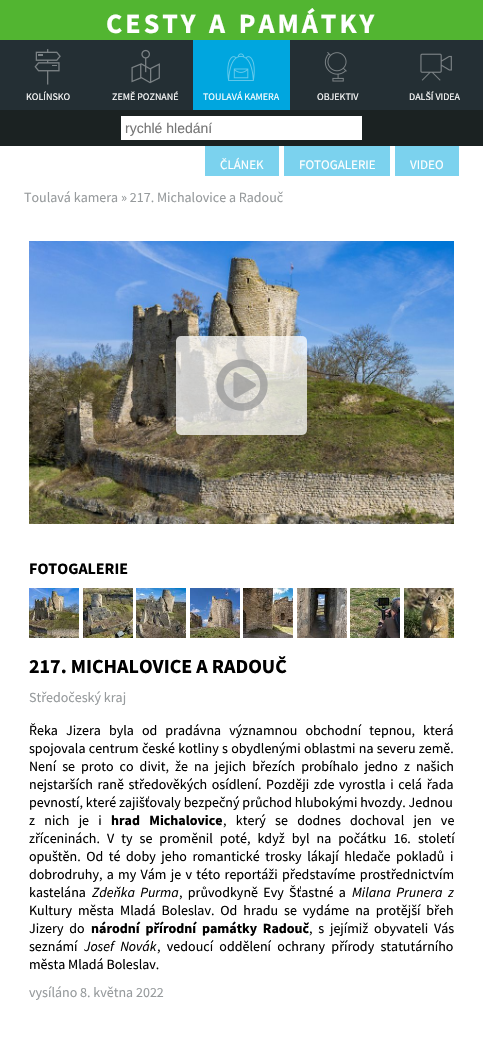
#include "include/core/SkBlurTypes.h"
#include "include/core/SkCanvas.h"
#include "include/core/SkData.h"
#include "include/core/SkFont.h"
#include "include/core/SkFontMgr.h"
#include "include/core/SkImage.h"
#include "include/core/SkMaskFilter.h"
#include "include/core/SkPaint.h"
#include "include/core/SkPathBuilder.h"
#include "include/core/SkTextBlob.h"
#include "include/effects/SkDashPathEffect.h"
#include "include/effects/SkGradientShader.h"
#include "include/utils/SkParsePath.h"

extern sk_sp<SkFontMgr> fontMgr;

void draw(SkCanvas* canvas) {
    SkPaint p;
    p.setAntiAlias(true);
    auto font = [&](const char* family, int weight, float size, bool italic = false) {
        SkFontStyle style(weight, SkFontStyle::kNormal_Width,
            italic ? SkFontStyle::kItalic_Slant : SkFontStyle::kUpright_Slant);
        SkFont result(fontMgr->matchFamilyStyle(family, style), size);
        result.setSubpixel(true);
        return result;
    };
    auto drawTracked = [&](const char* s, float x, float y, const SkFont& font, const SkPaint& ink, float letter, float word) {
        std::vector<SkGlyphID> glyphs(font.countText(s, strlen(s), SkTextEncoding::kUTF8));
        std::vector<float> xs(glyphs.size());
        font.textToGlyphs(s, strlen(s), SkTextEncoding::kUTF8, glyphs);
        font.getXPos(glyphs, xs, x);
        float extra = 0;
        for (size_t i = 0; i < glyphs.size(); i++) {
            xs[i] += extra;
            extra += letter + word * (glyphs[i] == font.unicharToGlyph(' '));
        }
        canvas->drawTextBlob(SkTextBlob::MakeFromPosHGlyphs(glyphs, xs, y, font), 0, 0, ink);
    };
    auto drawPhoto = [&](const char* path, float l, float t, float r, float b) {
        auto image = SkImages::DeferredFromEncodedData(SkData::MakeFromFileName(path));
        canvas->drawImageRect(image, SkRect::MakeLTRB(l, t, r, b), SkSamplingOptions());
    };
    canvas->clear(0xFFFFFFFF);
    p.setColor(0xFF242F34);
    canvas->drawRect(SkRect::MakeLTRB(0, 40, 483, 110), p);
    p.setColor(0xFF52B531);
    canvas->drawRect(SkRect::MakeLTRB(0, 0, 483, 40), p);
    auto font1 = font("Source Sans Pro", 700, 28);
    p.setColor(0xFFFFFFFF);
    drawTracked("CESTY A PAMÁTKY", 106, 33, font1, p, 3, 2);
    drawPhoto("media/1.png", 34, 49, 61, 85);
    auto font2 = font("Source Sans Pro", 400, 10);
    canvas->drawString("KOLÍNSKO", 26, 100, font2, p);
    drawPhoto("media/2.png", 131, 49, 160, 84);
    canvas->drawString("ZEMĚ POZNANÉ", 112, 100, font2, p);
    p.setColor(0xFF00A6DF);
    canvas->drawRect(SkRect::MakeLTRB(193, 40, 290, 110), p);
    drawPhoto("media/3.png", 227, 53, 255, 81);
    p.setColor(0xFFFFFFFF);
    canvas->drawString("TOULAVÁ KAMERA", 203, 100, font2, p);
    drawPhoto("media/4.png", 324, 52, 347, 82);
    canvas->drawString("OBJEKTIV", 317, 100, font2, p);
    drawPhoto("media/5.png", 420, 53, 452, 81);
    canvas->drawString("DALŠÍ VIDEA", 409, 100, font2, p);
    p.setColor(0xFF1B2222);
    canvas->drawRect(SkRect::MakeLTRB(0, 110, 483, 146), p);
    p.setColor(0xFFFFFFFF);
    canvas->drawRect(SkRect::MakeLTRB(121, 116, 362, 140), p);
    auto font3 = font("Liberation Sans", 400, 14);
    p.setColor(0xFF757575);
    canvas->drawString("rychlé hledání", 125, 133, font3, p);
    p.setColor(0xFF7BD2EE);
    canvas->drawRect(SkRect::MakeLTRB(205, 146, 279, 176), p);
    auto font4 = font("Source Sans Pro", 400, 13);
    p.setColor(0xFFFFFFFF);
    canvas->drawString("ČLÁNEK", 220, 169, font4, p);
    p.setColor(0xFF7BD2EE);
    canvas->drawRect(SkRect::MakeLTRB(284, 146, 390, 176), p);
    p.setColor(0xFFFFFFFF);
    canvas->drawString("FOTOGALERIE", 299, 169, font4, p);
    p.setColor(0xFF7BD2EE);
    canvas->drawRect(SkRect::MakeLTRB(395, 146, 459, 176), p);
    p.setColor(0xFFFFFFFF);
    canvas->drawString("VIDEO", 410, 169, font4, p);
    auto font5 = font("Source Sans Pro", 400, 14);
    p.setColor(0xFF979B9D);
    canvas->drawString("Toulavá kamera » 217. Michalovice a Radouč", 24, 202, font5, p);
    drawPhoto("media/6.png", 29, 241, 454, 524);
    p.setColor(0xBFFFFFFF);
    canvas->drawRoundRect(SkRect::MakeLTRB(176, 336, 307, 435), 5, 5, p);
    drawPhoto("media/7.png", 216, 359, 268, 411);
    auto font6 = font("Source Sans Pro", 700, 16);
    p.setColor(0xFF000000);
    canvas->drawString("FOTOGALERIE", 29, 574, font6, p);
    drawPhoto("media/8.png", 29, 588, 79, 638);
    drawPhoto("media/9.png", 83, 588, 133, 638);
    drawPhoto("media/10.png", 136, 588, 186, 638);
    drawPhoto("media/11.png", 190, 588, 240, 638);
    drawPhoto("media/12.png", 243, 588, 293, 638);
    drawPhoto("media/13.png", 297, 588, 347, 638);
    drawPhoto("media/14.png", 350, 588, 400, 638);
    drawPhoto("media/15.png", 404, 588, 454, 638);
    auto font7 = font("Source Sans Pro", 700, 20);
    canvas->drawString("217. MICHALOVICE A RADOUČ", 29, 673, font7, p);
    p.setColor(0xFF979B9D);
    canvas->drawString("Středočeský kraj", 29, 702, font5, p);
    p.setColor(0xFF000000);
    drawTracked("Řeka Jizera byla od pradávna významnou obchodní tepnou, která", 29, 735, font5, p, 0, 5.25f);
    drawTracked("spojovala centrum české kotliny s obydlenými oblastmi na severu země.", 29, 753, font5, p, 0, 0.5f);
    drawTracked("Není se proto co divit, že na jejich březích probíhalo jedno z našich", 29, 771, font5, p, 0, 3.25f);
    drawTracked("nejstarších raně středověkých osídlení. Později zde vyrostla i celá řada", 29, 789, font5, p, 0, 1.75f);
    canvas->drawString("pevností, které zajišťovaly bezpečný průchod hlubokými hvozdy. Jednou", 29, 807, font5, p);
    drawTracked("z nich je i", 29, 825, font5, p, 0, 6.5f);
    auto font8 = font("Source Sans Pro", 700, 14);
    drawTracked("hrad Michalovice", 111, 825, font8, p, 0, 6.5f);
    drawTracked(", který se dodnes dochoval jen ve", 223, 825, font5, p, 0, 6.5f);
    drawTracked("zříceninách. V ty se proměnil poté, když byl na počátku 16. století", 29, 843, font5, p, 0, 4.25f);
    drawTracked("opuštěn. Od té doby jeho romantické trosky lákají hledače pokladů i", 29, 861, font5, p, 0, 2.75f);
    drawTracked("dobrodruhy, a my Vám je v této reportáži představíme prostřednictvím", 29, 879, font5, p, 0, 1.5f);
    canvas->drawString("kastelána", 29, 897, font5, p);
    auto font9 = font("Source Sans Pro", 400, 14, true);
    drawTracked("Zdeňka Purma", 92, 897, font9, p, 0, 2.5f);
    drawTracked(", průvodkyně Evy Šťastné a", 179, 897, font5, p, 0, 2.5f);
    drawTracked("Milana Prunera z", 352, 897, font9, p, 0, 2.5f);
    drawTracked("Kultury města Mladá Boleslav. Od hradu se vydáme na protější břeh", 29, 915, font5, p, 0, 3.1f);
    drawTracked("Jizery do", 29, 933, font5, p, 0, 3);
    drawTracked("národní přírodní památky Radouč", 91, 933, font8, p, 0, 3);
    drawTracked(", s jejímiž obyvateli Vás", 309, 933, font5, p, 0, 3);
    canvas->drawString("seznámí", 29, 951, font5, p);
    drawTracked("Josef Novák", 84, 951, font9, p, 0, 3.5f);
    drawTracked(", vedoucí oddělení ochrany přírody statutárního", 157, 951, font5, p, 0, 3.5f);
    canvas->drawString("města Mladá Boleslav.", 29, 969, font5, p);
    p.setColor(0xFF979B9D);
    canvas->drawString("vysíláno 8. května 2022", 29, 997, font5, p);
}
